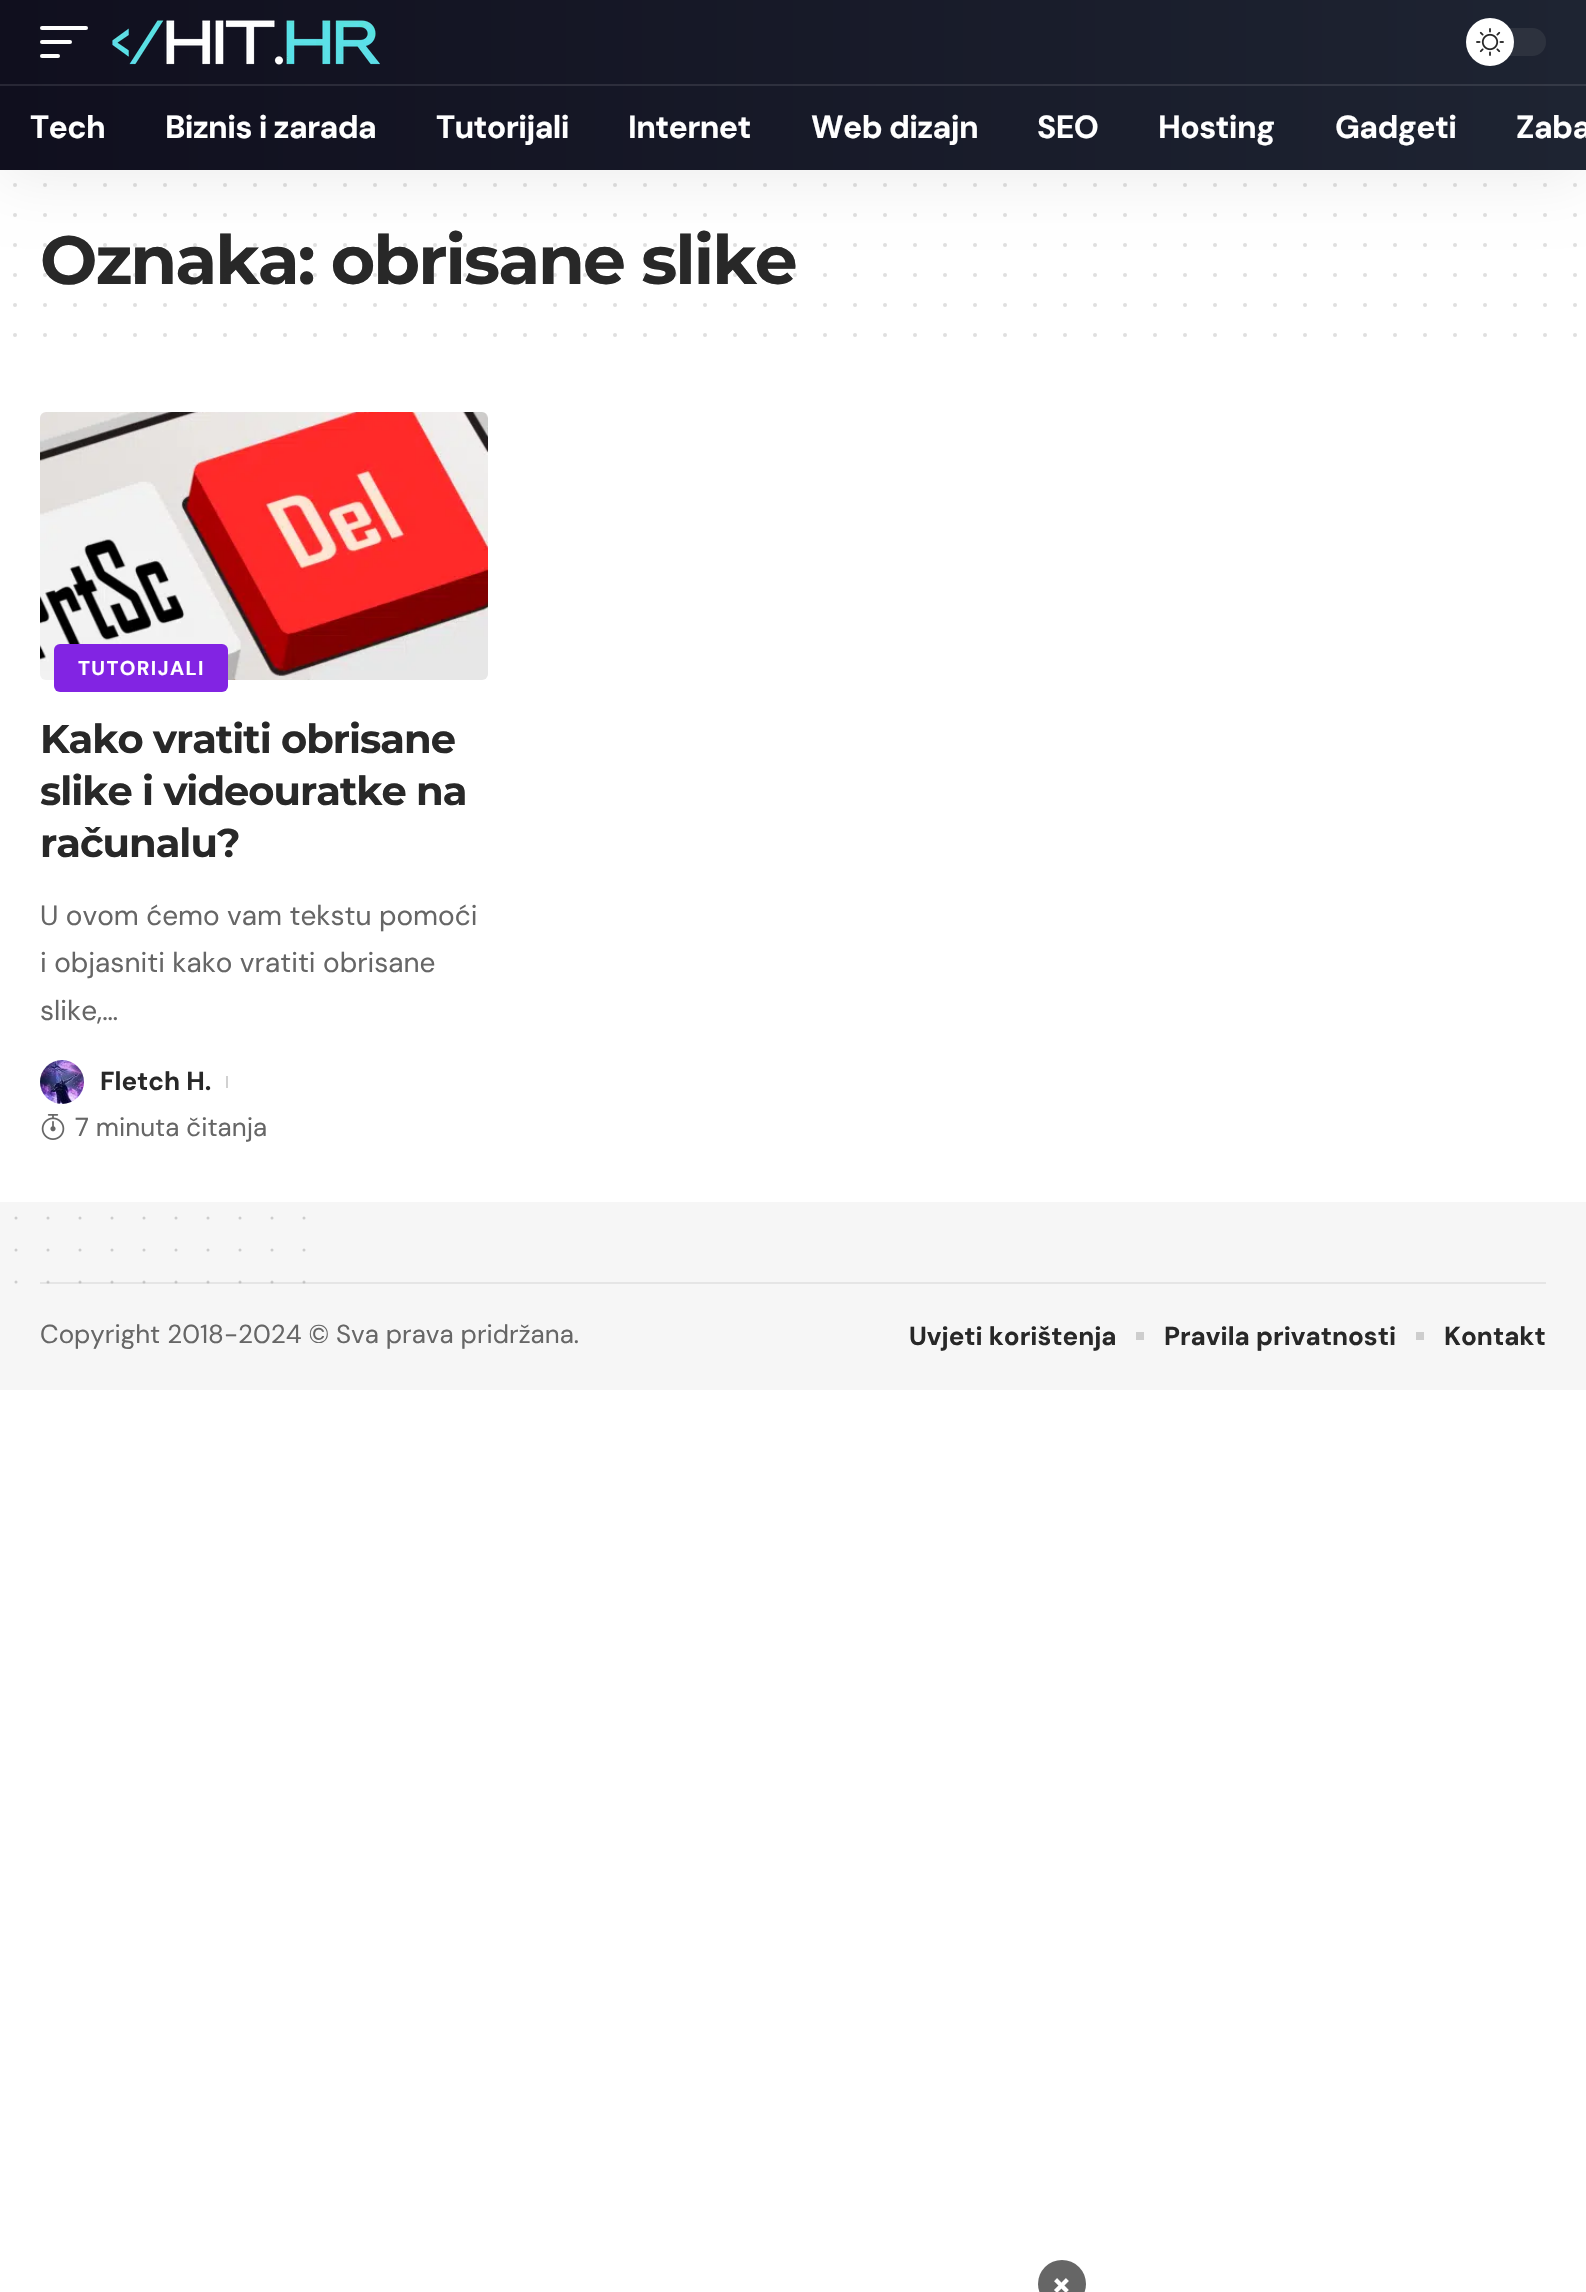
#include "include/core/SkBlurTypes.h"
#include "include/core/SkCanvas.h"
#include "include/core/SkData.h"
#include "include/core/SkFont.h"
#include "include/core/SkFontMgr.h"
#include "include/core/SkImage.h"
#include "include/core/SkMaskFilter.h"
#include "include/core/SkPaint.h"
#include "include/core/SkPathBuilder.h"
#include "include/core/SkTextBlob.h"
#include "include/effects/SkDashPathEffect.h"
#include "include/effects/SkGradientShader.h"
#include "include/utils/SkParsePath.h"

extern sk_sp<SkFontMgr> fontMgr;

void draw(SkCanvas* canvas) {
    SkPaint p;
    p.setAntiAlias(true);
    auto font = [&](const char* family, int weight, float size, bool italic = false) {
        SkFontStyle style(weight, SkFontStyle::kNormal_Width,
            italic ? SkFontStyle::kItalic_Slant : SkFontStyle::kUpright_Slant);
        SkFont result(fontMgr->matchFamilyStyle(family, style), size);
        result.setSubpixel(true);
        return result;
    };
    auto drawTracked = [&](const char* s, float x, float y, const SkFont& font, const SkPaint& ink, float letter, float word) {
        std::vector<SkGlyphID> glyphs(font.countText(s, strlen(s), SkTextEncoding::kUTF8));
        std::vector<float> xs(glyphs.size());
        font.textToGlyphs(s, strlen(s), SkTextEncoding::kUTF8, glyphs);
        font.getXPos(glyphs, xs, x);
        float extra = 0;
        for (size_t i = 0; i < glyphs.size(); i++) {
            xs[i] += extra;
            extra += letter + word * (glyphs[i] == font.unicharToGlyph(' '));
        }
        canvas->drawTextBlob(SkTextBlob::MakeFromPosHGlyphs(glyphs, xs, y, font), 0, 0, ink);
    };
    auto drawPhoto = [&](const char* path, float l, float t, float r, float b) {
        auto image = SkImages::DeferredFromEncodedData(SkData::MakeFromFileName(path));
        canvas->drawImageRect(image, SkRect::MakeLTRB(l, t, r, b), SkSamplingOptions());
    };
    canvas->clear(0xFFFFFFFF);
    p.setStyle(SkPaint::kStroke_Style);
    p.setStrokeWidth(4);
    p.setStrokeCap(SkPaint::kRound_Cap);
    p.setColor(0xFFDFDFDF);
    p.setPathEffect(SkDashPathEffect::Make({{0, 30}}, 0));
    canvas->drawPath(SkPathBuilder().moveTo(15, 185).lineTo(1575.4f, 185).detach(), p);
    p.setPathEffect(nullptr);
    p.setPathEffect(SkDashPathEffect::Make({{0, 30}}, 0));
    canvas->drawPath(SkPathBuilder().moveTo(15, 215).lineTo(1575.4f, 215).detach(), p);
    p.setPathEffect(nullptr);
    auto font1 = font("Montserrat", 700, 68);
    p.setStyle(SkPaint::kFill_Style);
    p.setColor(0xFF282828);
    drawTracked("Oznaka: obrisane slike", 40, 284, font1, p, -2, 0);
    p.setStyle(SkPaint::kStroke_Style);
    p.setColor(0x26282828);
    p.setPathEffect(SkDashPathEffect::Make({{0, 30}}, 0));
    canvas->drawPath(SkPathBuilder().moveTo(15, 245).lineTo(1575.4f, 245).detach(), p);
    p.setPathEffect(nullptr);
    p.setStyle(SkPaint::kFill_Style);
    p.setColor(0x12000000);
    p.setMaskFilter(SkMaskFilter::MakeBlur(kNormal_SkBlurStyle, 30));
    canvas->drawRect(SkRect::MakeLTRB(0, 8, 1586, 178), p);
    p.setMaskFilter(nullptr);
    {
        const SkColor colors[] = {0xFF100F1E, 0xFF1E2432};
        const float stops[] = {0, 1};
        const SkPoint ends[] = {{0, 85}, {1586, 85}};
        p.setShader(SkGradientShader::MakeLinear(ends, colors, stops, 2, SkTileMode::kClamp));
        p.setAlpha(255);
    }
    canvas->drawRect(SkRect::MakeLTRB(0, 0, 1586, 170), p);
    {
        const SkColor colors[] = {0xFF282735, 0xFF353A47};
        const float stops[] = {0, 1};
        const SkPoint ends[] = {{0, 85}, {1586, 85}};
        p.setShader(SkGradientShader::MakeLinear(ends, colors, stops, 2, SkTileMode::kClamp));
        p.setAlpha(255);
    }
    canvas->drawRect(SkRect::MakeLTRB(0, 84, 1586, 86), p);
    p.setShader(nullptr);
    p.setColor(0xFFFFFFFF);
    canvas->drawRoundRect(SkRect::MakeLTRB(40, 26, 88, 30), 2, 2, p);
    canvas->drawRoundRect(SkRect::MakeLTRB(40, 40, 72, 44), 2, 2, p);
    canvas->drawRoundRect(SkRect::MakeLTRB(40, 54, 60, 58), 2, 2, p);
    drawPhoto("media/1.png", 112, 20, 380, 65);
    p.setColor(0xFF2D323E);
    canvas->drawRoundRect(SkRect::MakeLTRB(1466, 28, 1546, 56), 14, 14, p);
    p.setColor(0xFFFFFFFF);
    canvas->drawCircle(1490, 42, 24, p);
    drawPhoto("media/2.png", 1476, 28, 1504, 56);
    auto font2 = font("DM Sans", 700, 32);
    {
        const struct { const char* s; float x, y; } items[] = {
            {"Tech", 30, 138},
            {"Biznis i zarada", 165, 138},
            {"Tutorijali", 436, 138},
            {"Internet", 628, 138},
            {"Web dizajn", 811, 138},
            {"SEO", 1037, 138},
            {"Hosting", 1158, 138},
            {"Gadgeti", 1335, 138},
            {"Zaba", 1516, 138},
        };
        for (auto [s, x, y] : items) {
            drawTracked(s, x, y, font2, p, -0.6f, 0);
        }
    }
    p.setStyle(SkPaint::kStroke_Style);
    p.setColor(0x26282828);
    p.setPathEffect(SkDashPathEffect::Make({{0, 30}}, 0));
    canvas->drawPath(SkPathBuilder().moveTo(15, 275).lineTo(1575.4f, 275).detach(), p);
    p.setPathEffect(nullptr);
    p.setColor(0xFFDFDFDF);
    p.setPathEffect(SkDashPathEffect::Make({{0, 30}}, 0));
    canvas->drawPath(SkPathBuilder().moveTo(15, 305).lineTo(1575.4f, 305).detach(), p);
    p.setPathEffect(nullptr);
    p.setPathEffect(SkDashPathEffect::Make({{0, 30}}, 0));
    canvas->drawPath(SkPathBuilder().moveTo(15, 335).lineTo(1575.4f, 335).detach(), p);
    p.setPathEffect(nullptr);
    drawPhoto("media/3.png", 40, 412, 488, 680);
    p.setStyle(SkPaint::kFill_Style);
    p.setColor(0xFF8224E3);
    canvas->drawRoundRect(SkRect::MakeLTRB(54, 644, 228, 692), 6, 6, p);
    auto font3 = font("DM Sans", 700, 20);
    p.setColor(0xFFFFFFFF);
    drawTracked("TUTORIJALI", 78, 675, font3, p, 1.4f, 0);
    auto font4 = font("Montserrat", 700, 40);
    p.setColor(0xFF282828);
    {
        const struct { const char* s; float x, y; } items[] = {
            {"Kako vratiti obrisane", 40, 753},
            {"slike i videouratke na", 40, 805},
            {"računalu?", 40, 857},
        };
        for (auto [s, x, y] : items) {
            drawTracked(s, x, y, font4, p, -1, 0);
        }
    }
    auto font5 = font("DM Sans", 400, 28);
    p.setColor(0xFF666666);
    {
        const struct { const char* s; float x, y; } items[] = {
            {"U ovom ćemo vam tekstu pomoći", 40, 925},
            {"i objasniti kako vratiti obrisane", 40, 972},
            {"slike,…", 40, 1020},
        };
        for (auto [s, x, y] : items) {
            canvas->drawString(s, x, y, font5, p);
        }
    }
    drawPhoto("media/4.png", 40, 1060, 84, 1104);
    auto font6 = font("DM Sans", 700, 26);
    p.setColor(0xFF282828);
    canvas->drawString("Fletch H.", 100, 1090, font6, p);
    p.setColor(0xFFD1D1D1);
    canvas->drawRect(SkRect::MakeLTRB(226, 1076, 228, 1088), p);
    drawPhoto("media/5.png", 41, 1114, 65, 1140);
    auto font7 = font("DM Sans", 400, 26);
    p.setColor(0xFF666666);
    canvas->drawString("7 minuta čitanja", 75, 1136, font7, p);
    p.setColor(0xFFF6F6F6);
    canvas->drawRect(SkRect::MakeLTRB(0, 1202, 1586, 1390), p);
    p.setStyle(SkPaint::kStroke_Style);
    p.setStrokeWidth(3);
    p.setColor(0xFFCDCDCD);
    p.setPathEffect(SkDashPathEffect::Make({{0, 32}}, 0));
    canvas->drawPath(SkPathBuilder().moveTo(16, 1218).lineTo(304.4f, 1218).detach(), p);
    p.setPathEffect(nullptr);
    p.setPathEffect(SkDashPathEffect::Make({{0, 32}}, 0));
    canvas->drawPath(SkPathBuilder().moveTo(16, 1250).lineTo(304.4f, 1250).detach(), p);
    p.setPathEffect(nullptr);
    p.setPathEffect(SkDashPathEffect::Make({{0, 32}}, 0));
    canvas->drawPath(SkPathBuilder().moveTo(16, 1282).lineTo(304.4f, 1282).detach(), p);
    p.setPathEffect(nullptr);
    p.setStyle(SkPaint::kFill_Style);
    p.setColor(0x26888888);
    canvas->drawRect(SkRect::MakeLTRB(40, 1282, 1546, 1284), p);
    p.setColor(0xFF666666);
    canvas->drawString("Copyright 2018-2024 © Sva prava pridržana.", 40, 1343, font7, p);
    p.setColor(0xFF282828);
    canvas->drawString("Uvjeti korištenja", 909, 1345, font6, p);
    p.setColor(0xFFCDCDCD);
    canvas->drawRect(SkRect::MakeLTRB(1136, 1332, 1144, 1340), p);
    p.setColor(0xFF282828);
    canvas->drawString("Pravila privatnosti", 1164, 1345, font6, p);
    p.setColor(0xFFCDCDCD);
    canvas->drawRect(SkRect::MakeLTRB(1416, 1332, 1424, 1340), p);
    p.setColor(0xFF282828);
    canvas->drawString("Kontakt", 1444, 1345, font6, p);
    p.setColor(0xFF666666);
    canvas->drawCircle(1062, 2284, 24, p);
    auto font8 = font("DM Sans", 700, 36);
    p.setColor(0xFFFFFFFF);
    canvas->drawString("×", 1051, 2296, font8, p);
}
